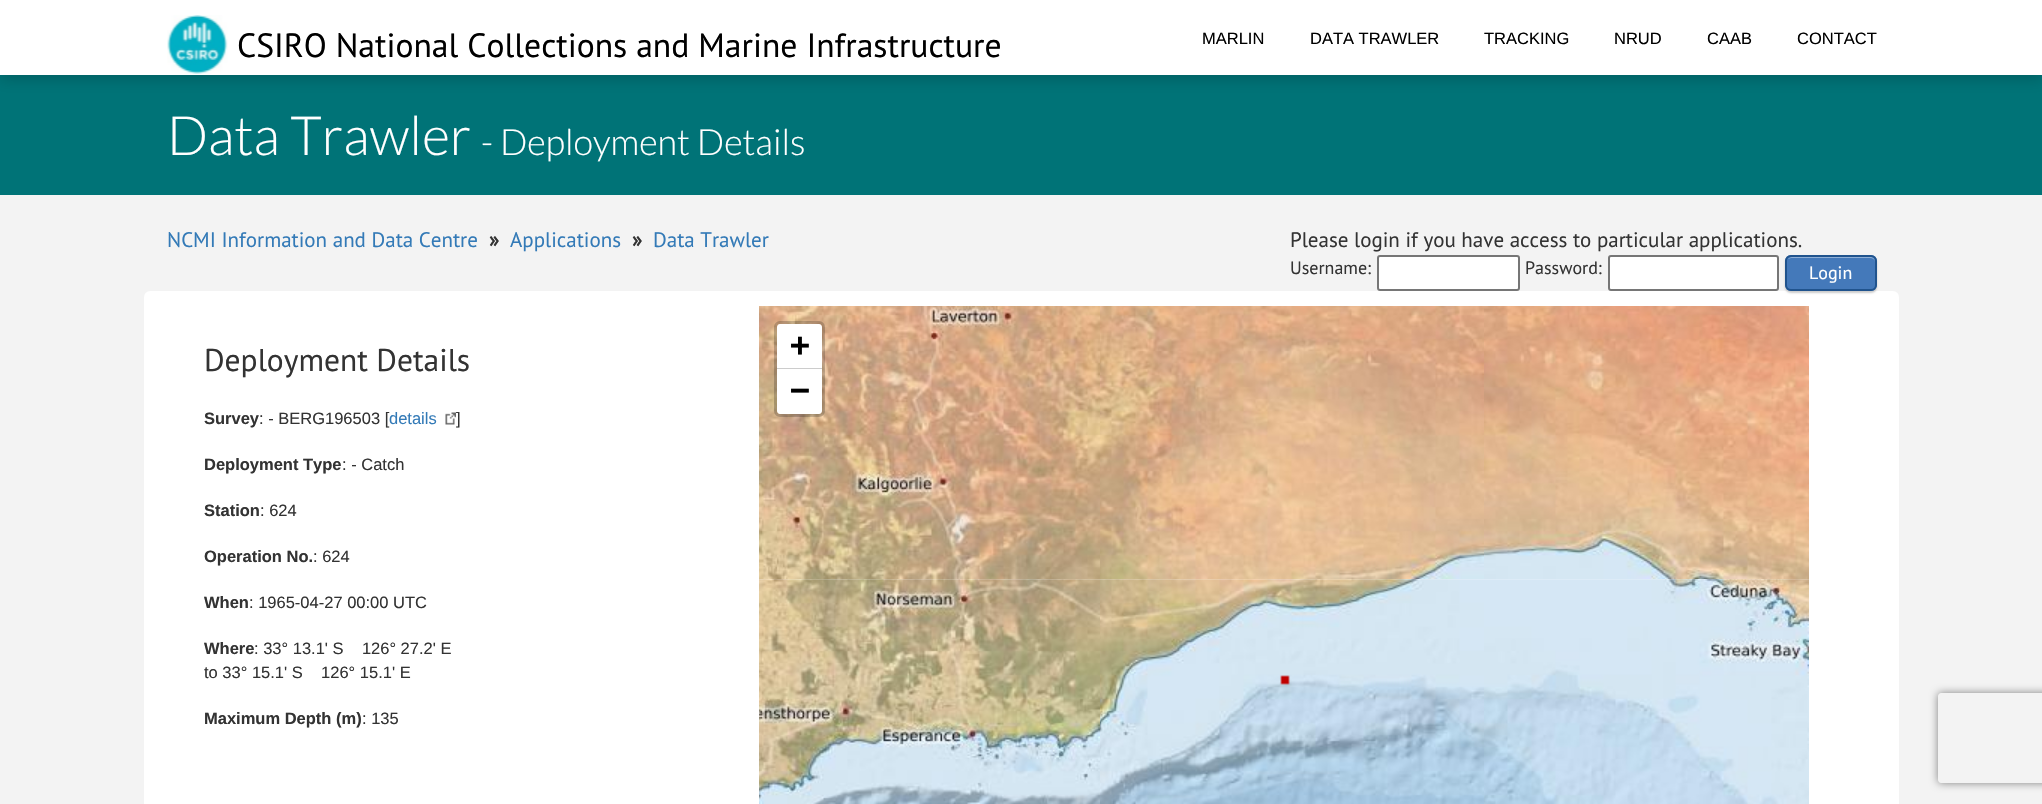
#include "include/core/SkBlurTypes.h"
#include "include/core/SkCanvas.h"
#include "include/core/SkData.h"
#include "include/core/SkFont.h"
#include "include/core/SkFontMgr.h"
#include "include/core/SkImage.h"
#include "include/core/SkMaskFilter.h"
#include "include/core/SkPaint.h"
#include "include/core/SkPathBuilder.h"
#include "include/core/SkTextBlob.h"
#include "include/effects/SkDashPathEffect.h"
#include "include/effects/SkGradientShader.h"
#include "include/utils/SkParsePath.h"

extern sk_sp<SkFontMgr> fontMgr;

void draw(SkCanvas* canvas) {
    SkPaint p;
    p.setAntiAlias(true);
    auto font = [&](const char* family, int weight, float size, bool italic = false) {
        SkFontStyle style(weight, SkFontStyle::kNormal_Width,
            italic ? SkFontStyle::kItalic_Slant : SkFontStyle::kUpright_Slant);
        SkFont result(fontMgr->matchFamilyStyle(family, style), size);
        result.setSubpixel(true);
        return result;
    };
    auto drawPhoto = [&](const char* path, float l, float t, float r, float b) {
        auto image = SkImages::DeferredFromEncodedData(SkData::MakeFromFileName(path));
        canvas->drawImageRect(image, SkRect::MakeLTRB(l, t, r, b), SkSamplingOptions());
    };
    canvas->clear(0xFFF3F3F3);
    p.setColor(0xFF007377);
    canvas->drawRect(SkRect::MakeLTRB(0, 75, 2042, 195), p);
    p.setColor(0x33000000);
    p.setMaskFilter(SkMaskFilter::MakeBlur(kNormal_SkBlurStyle, 7.5f));
    canvas->drawRect(SkRect::MakeLTRB(0, 3, 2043, 78), p);
    p.setMaskFilter(nullptr);
    p.setColor(0xFFFFFFFF);
    canvas->drawRect(SkRect::MakeLTRB(0, 0, 2042, 75), p);
    drawPhoto("media/1.png", 167, 15, 228, 74);
    auto font1 = font("PT Sans", 400, 33.6f);
    p.setColor(0xFF000000);
    canvas->drawString("CSIRO National Collections and Marine Infrastructure", 237, 57, font1, p);
    auto font2 = font("Liberation Sans", 400, 16.5f);
    {
        const struct { const char* s; float x, y; } items[] = {
            {"MARLIN", 1202, 44},
            {"DATA TRAWLER", 1310, 44},
            {"TRACKING", 1484, 44},
            {"NRUD", 1614, 44},
            {"CAAB", 1707, 44},
            {"CONTACT", 1797, 44},
        };
        for (auto [s, x, y] : items) {
            canvas->drawString(s, x, y, font2, p);
        }
    }
    auto font3 = font("Lato", 300, 54);
    p.setColor(0xFFFFFFFF);
    canvas->drawString("Data Trawler", 167, 155, font3, p);
    auto font4 = font("Lato", 300, 36);
    canvas->drawString("- Deployment Details", 481, 155, font4, p);
    auto font5 = font("PT Sans", 400, 21);
    p.setColor(0xFF337AB7);
    canvas->drawString("NCMI Information and Data Centre", 167, 247, font5, p);
    auto font6 = font("PT Sans", 700, 21);
    p.setColor(0xFF333333);
    canvas->drawString("»", 489, 247, font6, p);
    p.setColor(0xFF337AB7);
    canvas->drawString("Applications", 510, 247, font5, p);
    p.setColor(0xFF333333);
    canvas->drawString("»", 632, 247, font6, p);
    p.setColor(0xFF337AB7);
    canvas->drawString("Data Trawler", 653, 247, font5, p);
    p.setColor(0xFF333333);
    canvas->drawString("Please login if you have access to particular applications.", 1290, 247, font5, p);
    auto font7 = font("PT Sans", 400, 18);
    canvas->drawString("Username:", 1290, 274, font7, p);
    p.setColor(0xFFFFFFFF);
    canvas->drawRoundRect(SkRect::MakeLTRB(1378, 256, 1519, 290), 2, 2, p);
    p.setStyle(SkPaint::kStroke_Style);
    p.setStrokeWidth(2);
    p.setColor(0xFF767676);
    canvas->drawRoundRect(SkRect::MakeLTRB(1378, 256, 1519, 290), 2, 2, p);
    p.setStyle(SkPaint::kFill_Style);
    p.setColor(0xFF333333);
    canvas->drawString("Password:", 1525, 274, font7, p);
    p.setColor(0xFFFFFFFF);
    canvas->drawRoundRect(SkRect::MakeLTRB(1609, 256, 1778, 290), 2, 2, p);
    p.setStyle(SkPaint::kStroke_Style);
    p.setColor(0xFF767676);
    canvas->drawRoundRect(SkRect::MakeLTRB(1609, 256, 1778, 290), 2, 2, p);
    p.setStyle(SkPaint::kFill_Style);
    p.setColor(0xFFFFFFFF);
    canvas->drawRoundRect(SkRect::MakeLTRB(144, 291, 1899, 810), 6, 6, p);
    p.setColor(0x33000000);
    p.setMaskFilter(SkMaskFilter::MakeBlur(kNormal_SkBlurStyle, 1));
    canvas->drawRoundRect(SkRect::MakeLTRB(1785, 257, 1877, 293), 6, 6, p);
    p.setMaskFilter(nullptr);
    p.setColor(0xFF4479BA);
    canvas->drawRoundRect(SkRect::MakeLTRB(1785, 255, 1877, 291), 6, 6, p);
    p.setColor(0xFF8FAFD6);
    canvas->drawPath(SkPathBuilder().moveTo(1791, 258).lineTo(1870, 258).cubicTo(1873, 258, 1875, 260, 1875, 262).cubicTo(1875, 259, 1873, 257, 1870, 257).lineTo(1792, 257).cubicTo(1790, 257, 1789, 258, 1788, 259).close().detach(), p);
    p.setStyle(SkPaint::kStroke_Style);
    p.setColor(0xFF20538D);
    canvas->drawRoundRect(SkRect::MakeLTRB(1786, 256, 1876, 290), 5, 5, p);
    p.setStyle(SkPaint::kFill_Style);
    p.setColor(0xFFFFFFFF);
    canvas->drawString("Login", 1809, 279, font7, p);
    canvas->save();
    canvas->clipPath(SkPathBuilder(SkPathFillType::kEvenOdd).moveTo(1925, 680).lineTo(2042, 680).lineTo(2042, 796).lineTo(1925, 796).close().moveTo(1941, 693).lineTo(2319, 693).cubicTo(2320.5f, 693, 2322, 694.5f, 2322, 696).lineTo(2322, 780).cubicTo(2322, 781.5f, 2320.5f, 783, 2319, 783).lineTo(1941, 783).cubicTo(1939.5f, 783, 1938, 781.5f, 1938, 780).lineTo(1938, 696).cubicTo(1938, 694.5f, 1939.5f, 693, 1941, 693).close().detach(), true);
    p.setColor(0xFF808080);
    p.setMaskFilter(SkMaskFilter::MakeBlur(kNormal_SkBlurStyle, 4));
    canvas->drawRoundRect(SkRect::MakeLTRB(1938, 693, 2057, 783), 3, 3, p);
    p.setMaskFilter(nullptr);
    canvas->restore();
    auto font8 = font("PT Sans", 400, 31.5f);
    p.setColor(0xFF333333);
    canvas->drawString("Deployment Details", 204, 371, font8, p);
    auto font9 = font("Liberation Sans", 700, 16.5f);
    canvas->drawString("Survey", 204, 424, font9, p);
    canvas->drawString(": - BERG196503 [", 259, 424, font2, p);
    p.setColor(0xFF337AB7);
    canvas->drawString("details", 389, 424, font2, p);
    drawPhoto("media/2.png", 445, 412, 456, 425);
    p.setColor(0xFF333333);
    canvas->drawString("]", 456, 424, font2, p);
    canvas->drawString("Deployment Type", 204, 470, font9, p);
    canvas->drawString(": - Catch", 342, 470, font2, p);
    canvas->drawString("Station", 204, 516, font9, p);
    canvas->drawString(": 624", 260, 516, font2, p);
    canvas->drawString("Operation No.", 204, 562, font9, p);
    canvas->drawString(": 624", 313, 562, font2, p);
    canvas->drawString("When", 204, 608, font9, p);
    canvas->drawString(": 1965-04-27 00:00 UTC", 249, 608, font2, p);
    canvas->drawString("Where", 204, 654, font9, p);
    canvas->drawString(": 33° 13.1' S    126° 27.2' E", 254, 654, font2, p);
    canvas->drawString("to 33° 15.1' S    126° 15.1' E", 204, 678, font2, p);
    canvas->drawString("Maximum Depth (m)", 204, 724, font9, p);
    canvas->drawString(": 135", 362, 724, font2, p);
    drawPhoto("media/3.png", 759, 306, 1100, 579);
    drawPhoto("media/4.png", 1100, 306, 1484, 579);
    drawPhoto("media/5.png", 1484, 306, 1809, 579);
    drawPhoto("media/6.png", 759, 579, 1100, 804);
    drawPhoto("media/7.png", 1100, 579, 1484, 804);
    drawPhoto("media/8.png", 1484, 579, 1809, 804);
    drawPhoto("media/9.png", 1280, 675, 1290, 685);
    p.setStyle(SkPaint::kStroke_Style);
    p.setStrokeWidth(3);
    p.setColor(0x33000000);
    canvas->drawRoundRect(SkRect::MakeLTRB(775.5f, 322.5f, 823.5f, 415.5f), 4.5f, 4.5f, p);
    p.setStyle(SkPaint::kFill_Style);
    p.setColor(0xFFFFFFFF);
    canvas->drawPath(SkPathBuilder().moveTo(780, 324).lineTo(819, 324).cubicTo(820.5f, 324, 822, 325.5f, 822, 327).lineTo(822, 369).lineTo(777, 369).lineTo(777, 327).cubicTo(777, 325.5f, 778.5f, 324, 780, 324).close().detach(), p);
    p.setColor(0xFFCCCCCC);
    canvas->drawRect(SkRect::MakeLTRB(777, 368, 822, 369), p);
    auto font10 = font("DejaVu Sans Mono", 700, 33);
    p.setColor(0xFF000000);
    canvas->drawString("+", 790, 356, font10, p);
    p.setColor(0xFFFFFFFF);
    canvas->drawPath(SkPathBuilder().moveTo(777, 369).lineTo(822, 369).lineTo(822, 411).cubicTo(822, 412.5f, 820.5f, 414, 819, 414).lineTo(780, 414).cubicTo(778.5f, 414, 777, 412.5f, 777, 411).close().detach(), p);
    p.setColor(0xFF000000);
    canvas->drawString("−", 790, 401, font10, p);
}
